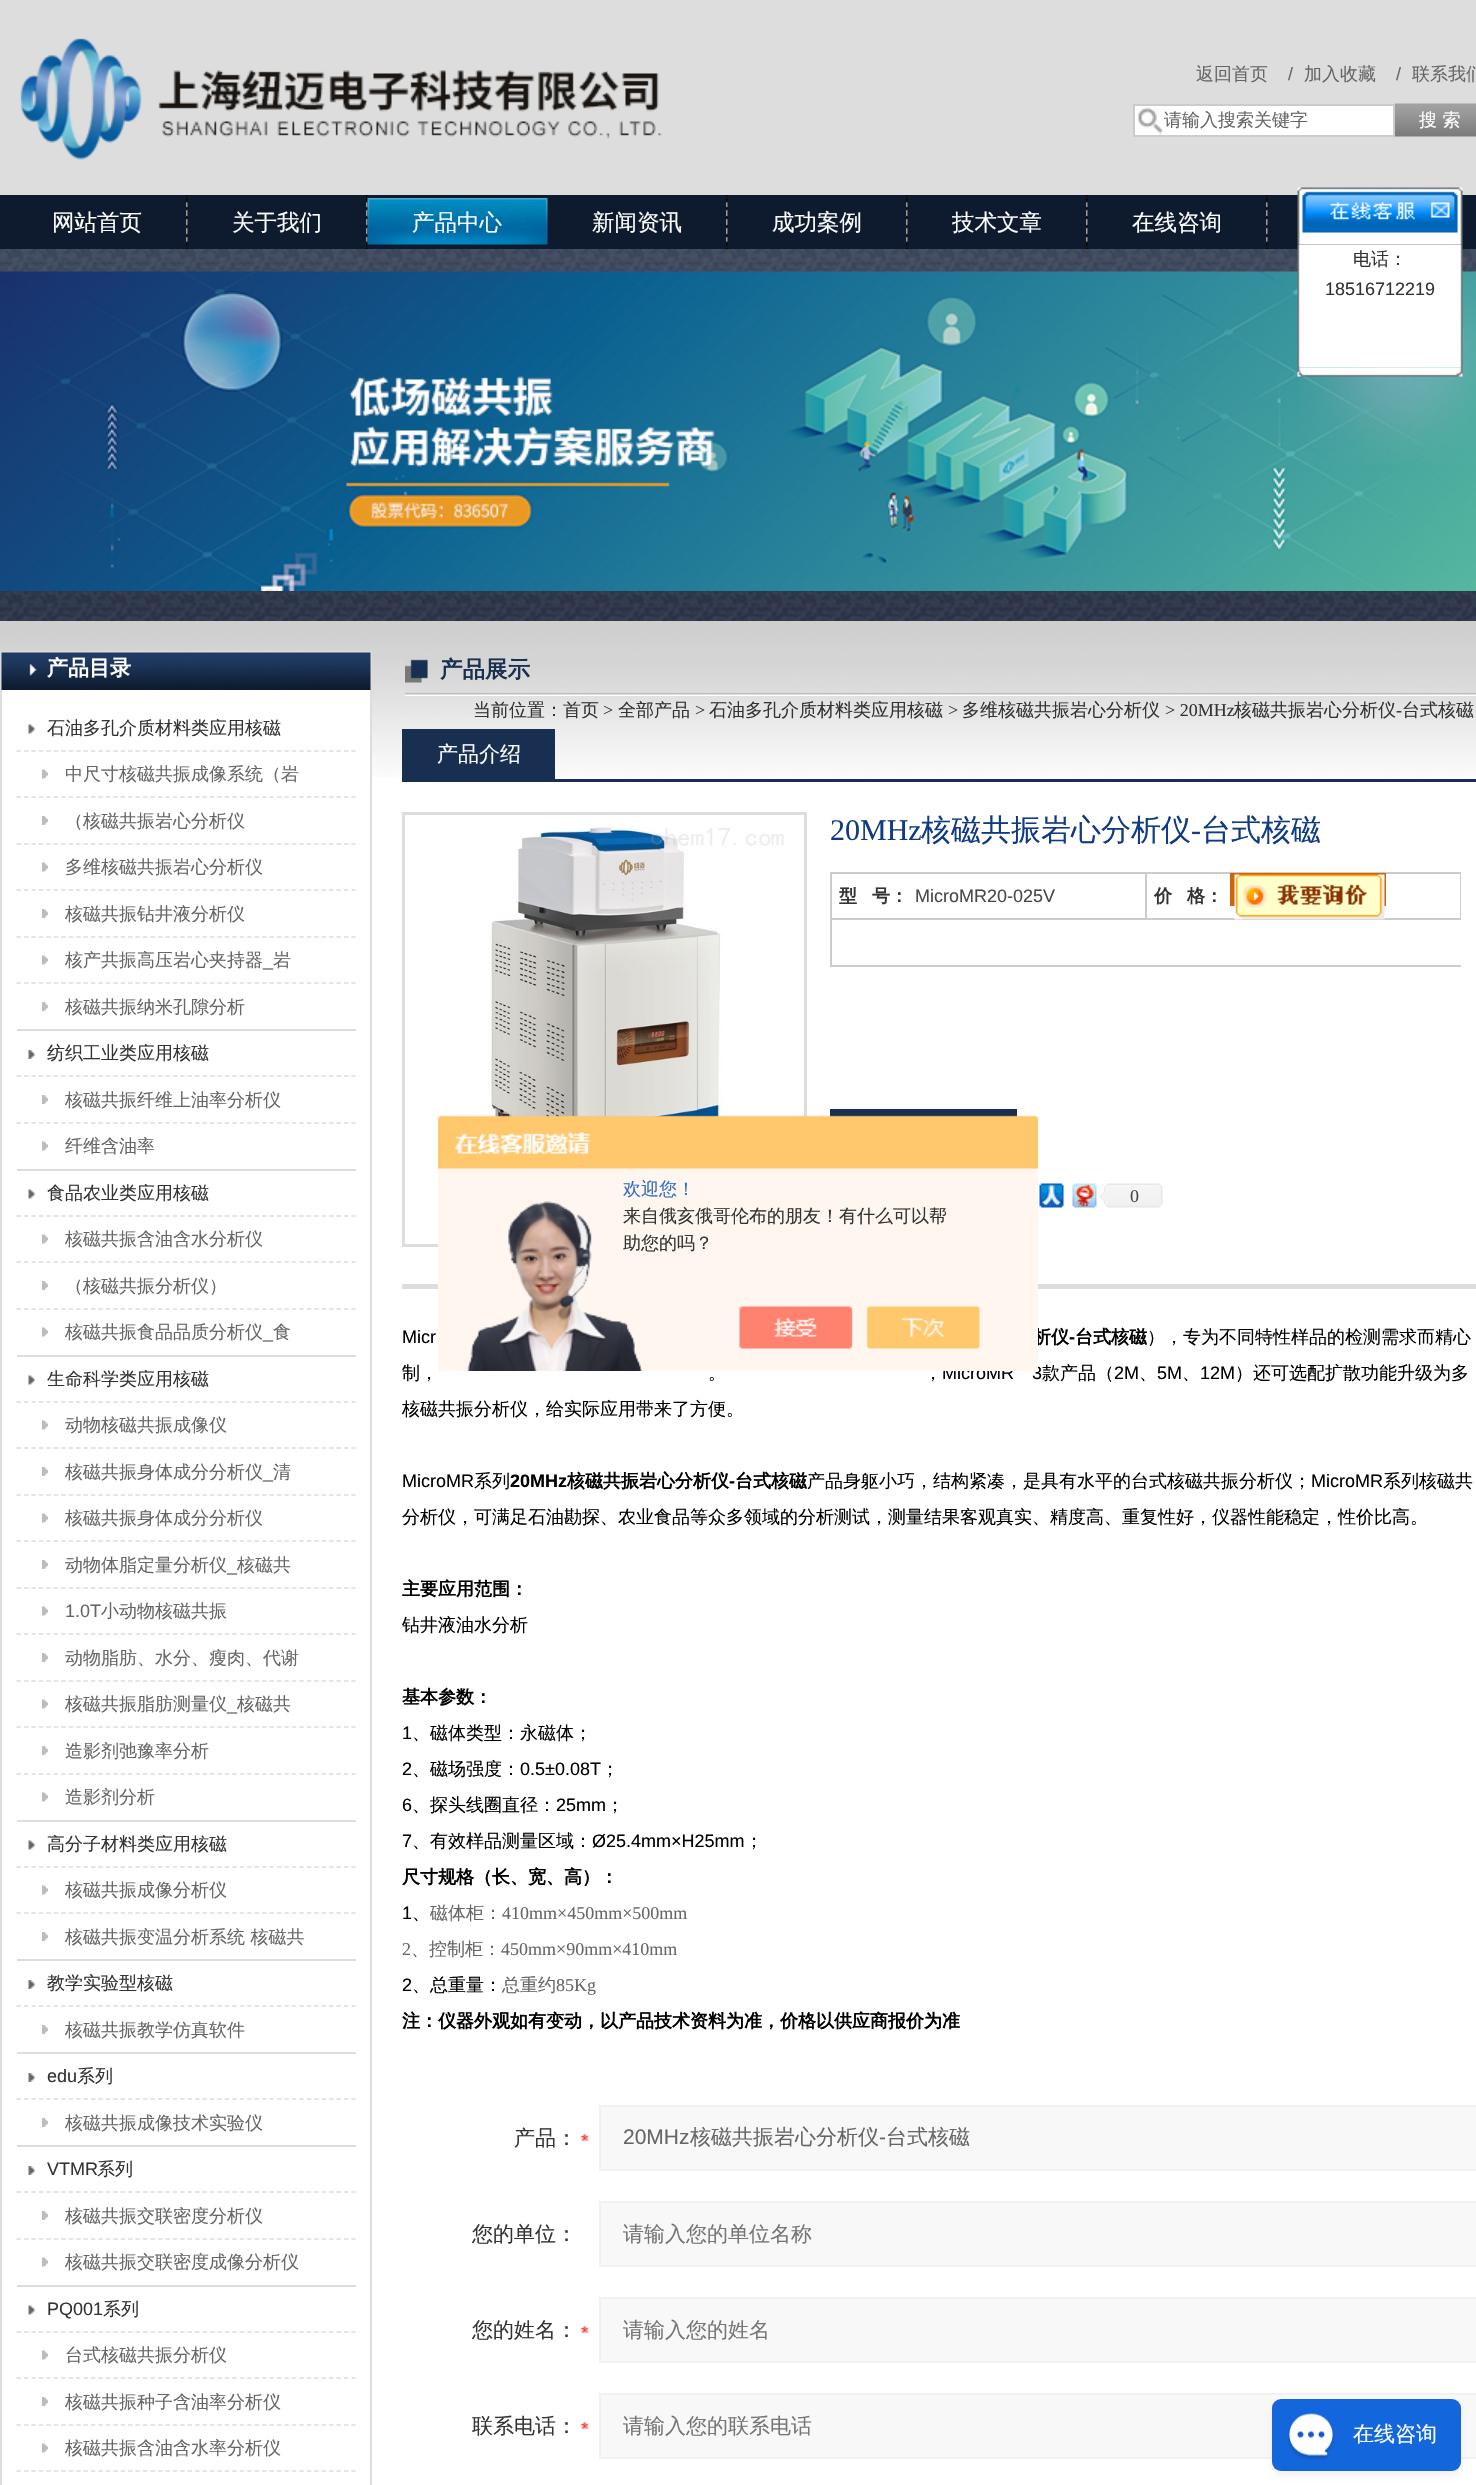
#include "include/core/SkBlurTypes.h"
#include "include/core/SkCanvas.h"
#include "include/core/SkData.h"
#include "include/core/SkFont.h"
#include "include/core/SkFontMgr.h"
#include "include/core/SkImage.h"
#include "include/core/SkMaskFilter.h"
#include "include/core/SkPaint.h"
#include "include/core/SkPathBuilder.h"
#include "include/core/SkTextBlob.h"
#include "include/effects/SkDashPathEffect.h"
#include "include/effects/SkGradientShader.h"
#include "include/utils/SkParsePath.h"

extern sk_sp<SkFontMgr> fontMgr;

void draw(SkCanvas* canvas) {
    SkPaint p;
    p.setAntiAlias(true);
    auto font = [&](const char* family, int weight, float size, bool italic = false) {
        SkFontStyle style(weight, SkFontStyle::kNormal_Width,
            italic ? SkFontStyle::kItalic_Slant : SkFontStyle::kUpright_Slant);
        SkFont result(fontMgr->matchFamilyStyle(family, style), size);
        result.setSubpixel(true);
        return result;
    };
    auto drawPhoto = [&](const char* path, float l, float t, float r, float b) {
        auto image = SkImages::DeferredFromEncodedData(SkData::MakeFromFileName(path));
        canvas->drawImageRect(image, SkRect::MakeLTRB(l, t, r, b), SkSamplingOptions());
    };
    canvas->clear(0xFFFFFFFF);
    p.setColor(0xFFDDDDDD);
    canvas->drawRect(SkRect::MakeLTRB(0, 0, 1476, 195), p);
    drawPhoto("media/1.png", 20, 38, 662, 160);
    auto font1 = font("WenQuanYi Zen Hei", 500, 18);
    p.setColor(0xFF666666);
    canvas->drawString("返回首页", 1196, 80, font1, p);
    auto font2 = font("Liberation Sans", 400, 18);
    canvas->drawString("/", 1288, 80, font2, p);
    canvas->drawString("加入收藏", 1304, 80, font1, p);
    canvas->drawString("/", 1396, 80, font2, p);
    canvas->drawString("联系我们", 1412, 80, font1, p);
    p.setColor(0xFFFFFFFF);
    canvas->drawRect(SkRect::MakeLTRB(1135, 106, 1393, 135), p);
    drawPhoto("media/2.png", 1138, 106, 1163, 135);
    p.setStyle(SkPaint::kStroke_Style);
    p.setStrokeWidth(2);
    p.setColor(0xFFCCCCCC);
    canvas->drawRect(SkRect::MakeLTRB(1134, 105, 1394, 136), p);
    p.setStyle(SkPaint::kFill_Style);
    p.setColor(0xFF666666);
    canvas->drawString("请输入搜索关键字", 1164, 126, font1, p);
    drawPhoto("media/3.png", 1395, 103, 1476, 137);
    p.setColor(0xFFFFFFFF);
    canvas->drawString("搜 索", 1419, 126, font1, p);
    p.setColor(0xFF0E1B2E);
    canvas->drawRect(SkRect::MakeLTRB(0, 195, 1476, 249), p);
    drawPhoto("media/4.png", 186, 195, 188, 249);
    auto font3 = font("WenQuanYi Zen Hei", 500, 22.5f);
    p.setColor(0xFFFFFFFF);
    canvas->drawString("网站首页", 52, 230, font3, p);
    drawPhoto("media/4.png", 366, 195, 368, 249);
    canvas->drawString("关于我们", 232, 230, font3, p);
    drawPhoto("media/5.png", 367, 198, 548, 245);
    canvas->drawString("产品中心", 412, 230, font3, p);
    drawPhoto("media/4.png", 726, 195, 728, 249);
    canvas->drawString("新闻资讯", 592, 230, font3, p);
    drawPhoto("media/4.png", 906, 195, 908, 249);
    canvas->drawString("成功案例", 772, 230, font3, p);
    drawPhoto("media/4.png", 1086, 195, 1088, 249);
    canvas->drawString("技术文章", 952, 230, font3, p);
    drawPhoto("media/4.png", 1266, 195, 1268, 249);
    canvas->drawString("在线咨询", 1132, 230, font3, p);
    drawPhoto("media/6.png", 1446, 244, 1448, 245);
    drawPhoto("media/7.png", 0, 249, 1476, 621);
    drawPhoto("media/8.png", 0, 271, 1476, 591);
    drawPhoto("media/10.png", 1297, 244, 1463, 368);
    drawPhoto("media/9.png", 1297, 187, 1463, 245);
    p.setColor(0xFF333333);
    canvas->drawString("电话：", 1353, 265, font1, p);
    canvas->drawString("18516712219", 1325, 295, font2, p);
    drawPhoto("media/11.png", 1297, 367, 1463, 377);
    drawPhoto("media/12.png", 0, 621, 1476, 777);
    p.setColor(0xFFFFFFFF);
    canvas->drawRect(SkRect::MakeLTRB(2, 690, 370, 777), p);
    p.setStyle(SkPaint::kStroke_Style);
    p.setColor(0xFFDDDDDD);
    canvas->drawRect(SkRect::MakeLTRB(1, 652, 371, 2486), p);
    drawPhoto("media/13.png", 1, 652, 371, 690);
    auto font4 = font("WenQuanYi Zen Hei", 700, 21);
    p.setStyle(SkPaint::kFill_Style);
    p.setColor(0xFFFFFFFF);
    canvas->drawString("产品目录", 47, 675, font4, p);
    p.setColor(0xFFDDDDDD);
    canvas->drawRect(SkRect::MakeLTRB(17, 1029, 356, 1031), p);
    drawPhoto("media/14.png", 28, 724, 35, 734);
    p.setColor(0xFF333333);
    canvas->drawString("石油多孔介质材料类应用核磁", 47, 734, font1, p);
    p.setStyle(SkPaint::kStroke_Style);
    p.setStrokeWidth(1.5f);
    p.setColor(0xFFDDDDDD);
    p.setPathEffect(SkDashPathEffect::Make({{4.5f, 2.94f}}, 0));
    canvas->drawPath(SkPathBuilder().moveTo(16.5f, 751).lineTo(355.5f, 751).detach(), p);
    p.setPathEffect(nullptr);
    drawPhoto("media/15.png", 42, 769, 48, 779);
    p.setStyle(SkPaint::kFill_Style);
    p.setColor(0xFF666666);
    canvas->drawString("中尺寸核磁共振成像系统（岩", 65, 780, font1, p);
    p.setStyle(SkPaint::kStroke_Style);
    p.setColor(0xFFDDDDDD);
    p.setPathEffect(SkDashPathEffect::Make({{4.5f, 2.94f}}, 0));
    canvas->drawPath(SkPathBuilder().moveTo(16.5f, 797).lineTo(355.5f, 797).detach(), p);
    p.setPathEffect(nullptr);
    drawPhoto("media/16.png", 42, 816, 48, 825);
    p.setStyle(SkPaint::kFill_Style);
    p.setColor(0xFF666666);
    canvas->drawString("（核磁共振岩心分析仪", 65, 827, font1, p);
    p.setStyle(SkPaint::kStroke_Style);
    p.setColor(0xFFDDDDDD);
    p.setPathEffect(SkDashPathEffect::Make({{4.5f, 2.94f}}, 0));
    canvas->drawPath(SkPathBuilder().moveTo(16.5f, 844).lineTo(355.5f, 844).detach(), p);
    p.setPathEffect(nullptr);
    drawPhoto("media/15.png", 42, 862, 48, 872);
    p.setStyle(SkPaint::kFill_Style);
    p.setColor(0xFF666666);
    canvas->drawString("多维核磁共振岩心分析仪", 65, 873, font1, p);
    p.setStyle(SkPaint::kStroke_Style);
    p.setColor(0xFFDDDDDD);
    p.setPathEffect(SkDashPathEffect::Make({{4.5f, 2.94f}}, 0));
    canvas->drawPath(SkPathBuilder().moveTo(16.5f, 890).lineTo(355.5f, 890).detach(), p);
    p.setPathEffect(nullptr);
    drawPhoto("media/16.png", 42, 909, 48, 918);
    p.setStyle(SkPaint::kFill_Style);
    p.setColor(0xFF666666);
    canvas->drawString("核磁共振钻井液分析仪", 65, 920, font1, p);
    p.setStyle(SkPaint::kStroke_Style);
    p.setColor(0xFFDDDDDD);
    p.setPathEffect(SkDashPathEffect::Make({{4.5f, 2.94f}}, 0));
    canvas->drawPath(SkPathBuilder().moveTo(16.5f, 937).lineTo(355.5f, 937).detach(), p);
    p.setPathEffect(nullptr);
    drawPhoto("media/15.png", 42, 955, 48, 965);
    p.setStyle(SkPaint::kFill_Style);
    p.setColor(0xFF666666);
    canvas->drawString("核产共振高压岩心夹持器", 65, 966, font1, p);
    canvas->drawString("_", 263, 966, font2, p);
    canvas->drawString("岩", 273, 966, font1, p);
    p.setStyle(SkPaint::kStroke_Style);
    p.setColor(0xFFDDDDDD);
    p.setPathEffect(SkDashPathEffect::Make({{4.5f, 2.94f}}, 0));
    canvas->drawPath(SkPathBuilder().moveTo(16.5f, 983).lineTo(355.5f, 983).detach(), p);
    p.setPathEffect(nullptr);
    drawPhoto("media/16.png", 42, 1002, 48, 1011);
    p.setStyle(SkPaint::kFill_Style);
    p.setColor(0xFF666666);
    canvas->drawString("核磁共振纳米孔隙分析", 65, 1013, font1, p);
    p.setColor(0xFFDDDDDD);
    canvas->drawRect(SkRect::MakeLTRB(17, 1169, 356, 1171), p);
    drawPhoto("media/17.png", 28, 1050, 35, 1059);
    p.setColor(0xFF333333);
    canvas->drawString("纺织工业类应用核磁", 47, 1059, font1, p);
    p.setStyle(SkPaint::kStroke_Style);
    p.setColor(0xFFDDDDDD);
    p.setPathEffect(SkDashPathEffect::Make({{4.5f, 2.94f}}, 0));
    canvas->drawPath(SkPathBuilder().moveTo(16.5f, 1076).lineTo(355.5f, 1076).detach(), p);
    p.setPathEffect(nullptr);
    drawPhoto("media/16.png", 42, 1095, 48, 1104);
    p.setStyle(SkPaint::kFill_Style);
    p.setColor(0xFF666666);
    canvas->drawString("核磁共振纤维上油率分析仪", 65, 1106, font1, p);
    p.setStyle(SkPaint::kStroke_Style);
    p.setColor(0xFFDDDDDD);
    p.setPathEffect(SkDashPathEffect::Make({{4.5f, 2.94f}}, 0));
    canvas->drawPath(SkPathBuilder().moveTo(16.5f, 1123).lineTo(355.5f, 1123).detach(), p);
    p.setPathEffect(nullptr);
    drawPhoto("media/15.png", 42, 1141, 48, 1151);
    p.setStyle(SkPaint::kFill_Style);
    p.setColor(0xFF666666);
    canvas->drawString("纤维含油率", 65, 1152, font1, p);
    p.setColor(0xFFDDDDDD);
    canvas->drawRect(SkRect::MakeLTRB(17, 1355, 356, 1357), p);
    drawPhoto("media/14.png", 28, 1189, 35, 1199);
    p.setColor(0xFF333333);
    canvas->drawString("食品农业类应用核磁", 47, 1199, font1, p);
    p.setStyle(SkPaint::kStroke_Style);
    p.setColor(0xFFDDDDDD);
    p.setPathEffect(SkDashPathEffect::Make({{4.5f, 2.94f}}, 0));
    canvas->drawPath(SkPathBuilder().moveTo(16.5f, 1216).lineTo(355.5f, 1216).detach(), p);
    p.setPathEffect(nullptr);
    drawPhoto("media/15.png", 42, 1234, 48, 1244);
    p.setStyle(SkPaint::kFill_Style);
    p.setColor(0xFF666666);
    canvas->drawString("核磁共振含油含水分析仪", 65, 1245, font1, p);
    p.setStyle(SkPaint::kStroke_Style);
    p.setColor(0xFFDDDDDD);
    p.setPathEffect(SkDashPathEffect::Make({{4.5f, 2.94f}}, 0));
    canvas->drawPath(SkPathBuilder().moveTo(16.5f, 1262).lineTo(355.5f, 1262).detach(), p);
    p.setPathEffect(nullptr);
    drawPhoto("media/16.png", 42, 1281, 48, 1290);
    p.setStyle(SkPaint::kFill_Style);
    p.setColor(0xFF666666);
    canvas->drawString("（核磁共振分析仪）", 65, 1292, font1, p);
    p.setStyle(SkPaint::kStroke_Style);
    p.setColor(0xFFDDDDDD);
    p.setPathEffect(SkDashPathEffect::Make({{4.5f, 2.94f}}, 0));
    canvas->drawPath(SkPathBuilder().moveTo(16.5f, 1309).lineTo(355.5f, 1309).detach(), p);
    p.setPathEffect(nullptr);
    drawPhoto("media/15.png", 42, 1327, 48, 1337);
    p.setStyle(SkPaint::kFill_Style);
    p.setColor(0xFF666666);
    canvas->drawString("核磁共振食品品质分析仪", 65, 1338, font1, p);
    canvas->drawString("_", 263, 1338, font2, p);
    canvas->drawString("食", 273, 1338, font1, p);
    p.setColor(0xFFDDDDDD);
    canvas->drawRect(SkRect::MakeLTRB(17, 1820, 356, 1822), p);
    drawPhoto("media/14.png", 28, 1375, 35, 1385);
    p.setColor(0xFF333333);
    canvas->drawString("生命科学类应用核磁", 47, 1385, font1, p);
    p.setStyle(SkPaint::kStroke_Style);
    p.setColor(0xFFDDDDDD);
    p.setPathEffect(SkDashPathEffect::Make({{4.5f, 2.94f}}, 0));
    canvas->drawPath(SkPathBuilder().moveTo(16.5f, 1402).lineTo(355.5f, 1402).detach(), p);
    p.setPathEffect(nullptr);
    drawPhoto("media/15.png", 42, 1420, 48, 1430);
    p.setStyle(SkPaint::kFill_Style);
    p.setColor(0xFF666666);
    canvas->drawString("动物核磁共振成像仪", 65, 1431, font1, p);
    p.setStyle(SkPaint::kStroke_Style);
    p.setColor(0xFFDDDDDD);
    p.setPathEffect(SkDashPathEffect::Make({{4.5f, 2.94f}}, 0));
    canvas->drawPath(SkPathBuilder().moveTo(16.5f, 1448).lineTo(355.5f, 1448).detach(), p);
    p.setPathEffect(nullptr);
    drawPhoto("media/16.png", 42, 1467, 48, 1476);
    p.setStyle(SkPaint::kFill_Style);
    p.setColor(0xFF666666);
    canvas->drawString("核磁共振身体成分分析仪", 65, 1478, font1, p);
    canvas->drawString("_", 263, 1478, font2, p);
    canvas->drawString("清", 273, 1478, font1, p);
    p.setStyle(SkPaint::kStroke_Style);
    p.setColor(0xFFDDDDDD);
    p.setPathEffect(SkDashPathEffect::Make({{4.5f, 2.94f}}, 0));
    canvas->drawPath(SkPathBuilder().moveTo(16.5f, 1495).lineTo(355.5f, 1495).detach(), p);
    p.setPathEffect(nullptr);
    drawPhoto("media/15.png", 42, 1513, 48, 1523);
    p.setStyle(SkPaint::kFill_Style);
    p.setColor(0xFF666666);
    canvas->drawString("核磁共振身体成分分析仪", 65, 1524, font1, p);
    p.setStyle(SkPaint::kStroke_Style);
    p.setColor(0xFFDDDDDD);
    p.setPathEffect(SkDashPathEffect::Make({{4.5f, 2.94f}}, 0));
    canvas->drawPath(SkPathBuilder().moveTo(16.5f, 1541).lineTo(355.5f, 1541).detach(), p);
    p.setPathEffect(nullptr);
    drawPhoto("media/16.png", 42, 1560, 48, 1569);
    p.setStyle(SkPaint::kFill_Style);
    p.setColor(0xFF666666);
    canvas->drawString("动物体脂定量分析仪", 65, 1571, font1, p);
    canvas->drawString("_", 227, 1571, font2, p);
    canvas->drawString("核磁共", 237, 1571, font1, p);
    p.setStyle(SkPaint::kStroke_Style);
    p.setColor(0xFFDDDDDD);
    p.setPathEffect(SkDashPathEffect::Make({{4.5f, 2.94f}}, 0));
    canvas->drawPath(SkPathBuilder().moveTo(16.5f, 1588).lineTo(355.5f, 1588).detach(), p);
    p.setPathEffect(nullptr);
    drawPhoto("media/15.png", 42, 1606, 48, 1616);
    p.setStyle(SkPaint::kFill_Style);
    p.setColor(0xFF666666);
    canvas->drawString("1.0T", 65, 1617, font2, p);
    canvas->drawString("小动物核磁共振", 101, 1617, font1, p);
    p.setStyle(SkPaint::kStroke_Style);
    p.setColor(0xFFDDDDDD);
    p.setPathEffect(SkDashPathEffect::Make({{4.5f, 2.94f}}, 0));
    canvas->drawPath(SkPathBuilder().moveTo(16.5f, 1634).lineTo(355.5f, 1634).detach(), p);
    p.setPathEffect(nullptr);
    drawPhoto("media/16.png", 42, 1653, 48, 1662);
    p.setStyle(SkPaint::kFill_Style);
    p.setColor(0xFF666666);
    canvas->drawString("动物脂肪、水分、瘦肉、代谢", 65, 1664, font1, p);
    p.setStyle(SkPaint::kStroke_Style);
    p.setColor(0xFFDDDDDD);
    p.setPathEffect(SkDashPathEffect::Make({{4.5f, 2.94f}}, 0));
    canvas->drawPath(SkPathBuilder().moveTo(16.5f, 1681).lineTo(355.5f, 1681).detach(), p);
    p.setPathEffect(nullptr);
    drawPhoto("media/15.png", 42, 1699, 48, 1709);
    p.setStyle(SkPaint::kFill_Style);
    p.setColor(0xFF666666);
    canvas->drawString("核磁共振脂肪测量仪", 65, 1710, font1, p);
    canvas->drawString("_", 227, 1710, font2, p);
    canvas->drawString("核磁共", 237, 1710, font1, p);
    p.setStyle(SkPaint::kStroke_Style);
    p.setColor(0xFFDDDDDD);
    p.setPathEffect(SkDashPathEffect::Make({{4.5f, 2.94f}}, 0));
    canvas->drawPath(SkPathBuilder().moveTo(16.5f, 1727).lineTo(355.5f, 1727).detach(), p);
    p.setPathEffect(nullptr);
    drawPhoto("media/16.png", 42, 1746, 48, 1755);
    p.setStyle(SkPaint::kFill_Style);
    p.setColor(0xFF666666);
    canvas->drawString("造影剂弛豫率分析", 65, 1757, font1, p);
    p.setStyle(SkPaint::kStroke_Style);
    p.setColor(0xFFDDDDDD);
    p.setPathEffect(SkDashPathEffect::Make({{4.5f, 2.94f}}, 0));
    canvas->drawPath(SkPathBuilder().moveTo(16.5f, 1774).lineTo(355.5f, 1774).detach(), p);
    p.setPathEffect(nullptr);
    drawPhoto("media/15.png", 42, 1792, 48, 1802);
    p.setStyle(SkPaint::kFill_Style);
    p.setColor(0xFF666666);
    canvas->drawString("造影剂分析", 65, 1803, font1, p);
    p.setColor(0xFFDDDDDD);
    canvas->drawRect(SkRect::MakeLTRB(17, 1959, 356, 1961), p);
    drawPhoto("media/14.png", 28, 1840, 35, 1850);
    p.setColor(0xFF333333);
    canvas->drawString("高分子材料类应用核磁", 47, 1850, font1, p);
    p.setStyle(SkPaint::kStroke_Style);
    p.setColor(0xFFDDDDDD);
    p.setPathEffect(SkDashPathEffect::Make({{4.5f, 2.94f}}, 0));
    canvas->drawPath(SkPathBuilder().moveTo(16.5f, 1867).lineTo(355.5f, 1867).detach(), p);
    p.setPathEffect(nullptr);
    drawPhoto("media/15.png", 42, 1885, 48, 1895);
    p.setStyle(SkPaint::kFill_Style);
    p.setColor(0xFF666666);
    canvas->drawString("核磁共振成像分析仪", 65, 1896, font1, p);
    p.setStyle(SkPaint::kStroke_Style);
    p.setColor(0xFFDDDDDD);
    p.setPathEffect(SkDashPathEffect::Make({{4.5f, 2.94f}}, 0));
    canvas->drawPath(SkPathBuilder().moveTo(16.5f, 1913).lineTo(355.5f, 1913).detach(), p);
    p.setPathEffect(nullptr);
    drawPhoto("media/16.png", 42, 1932, 48, 1941);
    p.setStyle(SkPaint::kFill_Style);
    p.setColor(0xFF666666);
    canvas->drawString("核磁共振变温分析系统 核磁共", 65, 1943, font1, p);
    p.setColor(0xFFDDDDDD);
    canvas->drawRect(SkRect::MakeLTRB(17, 2052, 356, 2054), p);
    drawPhoto("media/17.png", 28, 1980, 35, 1989);
    p.setColor(0xFF333333);
    canvas->drawString("教学实验型核磁", 47, 1989, font1, p);
    p.setStyle(SkPaint::kStroke_Style);
    p.setColor(0xFFDDDDDD);
    p.setPathEffect(SkDashPathEffect::Make({{4.5f, 2.94f}}, 0));
    canvas->drawPath(SkPathBuilder().moveTo(16.5f, 2006).lineTo(355.5f, 2006).detach(), p);
    p.setPathEffect(nullptr);
    drawPhoto("media/16.png", 42, 2025, 48, 2034);
    p.setStyle(SkPaint::kFill_Style);
    p.setColor(0xFF666666);
    canvas->drawString("核磁共振教学仿真软件", 65, 2036, font1, p);
    p.setColor(0xFFDDDDDD);
    canvas->drawRect(SkRect::MakeLTRB(17, 2145, 356, 2147), p);
    drawPhoto("media/17.png", 28, 2073, 35, 2082);
    p.setColor(0xFF333333);
    canvas->drawString("edu", 47, 2082, font2, p);
    canvas->drawString("系列", 77, 2082, font1, p);
    p.setStyle(SkPaint::kStroke_Style);
    p.setColor(0xFFDDDDDD);
    p.setPathEffect(SkDashPathEffect::Make({{4.5f, 2.94f}}, 0));
    canvas->drawPath(SkPathBuilder().moveTo(16.5f, 2099).lineTo(355.5f, 2099).detach(), p);
    p.setPathEffect(nullptr);
    drawPhoto("media/16.png", 42, 2118, 48, 2127);
    p.setStyle(SkPaint::kFill_Style);
    p.setColor(0xFF666666);
    canvas->drawString("核磁共振成像技术实验仪", 65, 2129, font1, p);
    p.setColor(0xFFDDDDDD);
    canvas->drawRect(SkRect::MakeLTRB(17, 2285, 356, 2287), p);
    drawPhoto("media/17.png", 28, 2166, 35, 2175);
    p.setColor(0xFF333333);
    canvas->drawString("VTMR", 47, 2175, font2, p);
    canvas->drawString("系列", 97, 2175, font1, p);
    p.setStyle(SkPaint::kStroke_Style);
    p.setColor(0xFFDDDDDD);
    p.setPathEffect(SkDashPathEffect::Make({{4.5f, 2.94f}}, 0));
    canvas->drawPath(SkPathBuilder().moveTo(16.5f, 2192).lineTo(355.5f, 2192).detach(), p);
    p.setPathEffect(nullptr);
    drawPhoto("media/16.png", 42, 2211, 48, 2220);
    p.setStyle(SkPaint::kFill_Style);
    p.setColor(0xFF666666);
    canvas->drawString("核磁共振交联密度分析仪", 65, 2222, font1, p);
    p.setStyle(SkPaint::kStroke_Style);
    p.setColor(0xFFDDDDDD);
    p.setPathEffect(SkDashPathEffect::Make({{4.5f, 2.94f}}, 0));
    canvas->drawPath(SkPathBuilder().moveTo(16.5f, 2239).lineTo(355.5f, 2239).detach(), p);
    p.setPathEffect(nullptr);
    drawPhoto("media/15.png", 42, 2257, 48, 2267);
    p.setStyle(SkPaint::kFill_Style);
    p.setColor(0xFF666666);
    canvas->drawString("核磁共振交联密度成像分析仪", 65, 2268, font1, p);
    drawPhoto("media/14.png", 28, 2305, 35, 2315);
    p.setColor(0xFF333333);
    canvas->drawString("PQ001", 47, 2315, font2, p);
    canvas->drawString("系列", 103, 2315, font1, p);
    p.setStyle(SkPaint::kStroke_Style);
    p.setColor(0xFFDDDDDD);
    p.setPathEffect(SkDashPathEffect::Make({{4.5f, 2.94f}}, 0));
    canvas->drawPath(SkPathBuilder().moveTo(16.5f, 2332).lineTo(355.5f, 2332).detach(), p);
    p.setPathEffect(nullptr);
    drawPhoto("media/15.png", 42, 2350, 48, 2360);
    p.setStyle(SkPaint::kFill_Style);
    p.setColor(0xFF666666);
    canvas->drawString("台式核磁共振分析仪", 65, 2361, font1, p);
    p.setStyle(SkPaint::kStroke_Style);
    p.setColor(0xFFDDDDDD);
    p.setPathEffect(SkDashPathEffect::Make({{4.5f, 2.94f}}, 0));
    canvas->drawPath(SkPathBuilder().moveTo(16.5f, 2378).lineTo(355.5f, 2378).detach(), p);
    p.setPathEffect(nullptr);
    drawPhoto("media/16.png", 42, 2397, 48, 2406);
    p.setStyle(SkPaint::kFill_Style);
    p.setColor(0xFF666666);
    canvas->drawString("核磁共振种子含油率分析仪", 65, 2408, font1, p);
    p.setStyle(SkPaint::kStroke_Style);
    p.setColor(0xFFDDDDDD);
    p.setPathEffect(SkDashPathEffect::Make({{4.5f, 2.94f}}, 0));
    canvas->drawPath(SkPathBuilder().moveTo(16.5f, 2425).lineTo(355.5f, 2425).detach(), p);
    p.setPathEffect(nullptr);
    drawPhoto("media/15.png", 42, 2443, 48, 2453);
    p.setStyle(SkPaint::kFill_Style);
    p.setColor(0xFF666666);
    canvas->drawString("核磁共振含油含水率分析仪", 65, 2454, font1, p);
    p.setStyle(SkPaint::kStroke_Style);
    p.setColor(0xFFDDDDDD);
    p.setPathEffect(SkDashPathEffect::Make({{4.5f, 2.94f}}, 0));
    canvas->drawPath(SkPathBuilder().moveTo(16.5f, 2471).lineTo(355.5f, 2471).detach(), p);
    p.setPathEffect(nullptr);
    drawPhoto("media/18.png", 405, 659, 1476, 696);
    auto font5 = font("WenQuanYi Zen Hei", 700, 22.5f);
    p.setStyle(SkPaint::kFill_Style);
    p.setColor(0xFF193050);
    canvas->drawString("产品展示", 440, 677, font5, p);
    p.setColor(0xFF333333);
    canvas->drawString("当前位置：首页", 473, 716, font1, p);
    auto font6 = font("Liberation Serif", 400, 18);
    canvas->drawString(">", 603, 716, font6, p);
    canvas->drawString("全部产品", 618, 716, font1, p);
    canvas->drawString(">", 695, 716, font6, p);
    canvas->drawString("石油多孔介质材料类应用核磁", 709, 716, font1, p);
    canvas->drawString(">", 948, 716, font6, p);
    canvas->drawString("多维核磁共振岩心分析仪", 962, 716, font1, p);
    canvas->drawString("> 20MHz", 1165, 716, font6, p);
    canvas->drawString("核磁共振岩心分析仪", 1234, 716, font1, p);
    canvas->drawString("-", 1396, 716, font6, p);
    canvas->drawString("台式核磁", 1402, 716, font1, p);
    p.setColor(0xFF182F51);
    canvas->drawRect(SkRect::MakeLTRB(402, 779, 1476, 782), p);
    canvas->drawRect(SkRect::MakeLTRB(402, 729, 555, 779), p);
    auto font7 = font("WenQuanYi Zen Hei", 500, 21);
    p.setColor(0xFFFFFFFF);
    canvas->drawString("产品介绍", 437, 761, font7, p);
    p.setColor(0xFFDDDDDD);
    canvas->drawRect(SkRect::MakeLTRB(402, 1284, 1476, 1289), p);
    p.setStyle(SkPaint::kStroke_Style);
    p.setStrokeWidth(3);
    canvas->drawRect(SkRect::MakeLTRB(403.5f, 813.5f, 805.5f, 1245.5f), p);
    drawPhoto("media/19.png", 489, 825, 784, 1117);
    auto font8 = font("Liberation Serif", 400, 30);
    p.setStyle(SkPaint::kFill_Style);
    p.setColor(0xFF0F3B82);
    canvas->drawString("20MHz", 830, 840, font8, p);
    auto font9 = font("WenQuanYi Zen Hei", 500, 30);
    canvas->drawString("核磁共振岩心分析仪", 921, 840, font9, p);
    canvas->drawString("-", 1191, 840, font8, p);
    canvas->drawString("台式核磁", 1201, 840, font9, p);
    {
        const struct { float l, t, r, b; SkColor color; } items[] = {
            {830, 872, 1461, 874, 0xFFCCCCCC},
            {830, 965, 1461, 967, 0xFFCCCCCC},
            {830, 872, 832, 966, 0xFFCCCCCC},
            {1145, 873, 1147, 920, 0xFFCCCCCC},
            {831, 918, 1146, 920, 0xFFCCCCCC},
        };
        for (auto [l, t, r, b, color] : items) {
            p.setColor(color);
            canvas->drawRect(SkRect::MakeLTRB(l, t, r, b), p);
        }
    }
    auto font10 = font("WenQuanYi Zen Hei", 700, 18);
    p.setColor(0xFF333333);
    canvas->drawString("型", 839, 902, font10, p);
    canvas->drawString("号：", 872, 902, font10, p);
    p.setColor(0xFF474747);
    canvas->drawString("MicroMR20-025V", 915, 902, font2, p);
    p.setColor(0xFFCCCCCC);
    canvas->drawRect(SkRect::MakeLTRB(1460, 873, 1461, 920), p);
    canvas->drawRect(SkRect::MakeLTRB(1146, 918, 1461, 920), p);
    p.setColor(0xFF333333);
    canvas->drawString("价", 1154, 902, font10, p);
    canvas->drawString("格：", 1187, 902, font10, p);
    p.setColor(0xFFCF6408);
    canvas->drawRect(SkRect::MakeLTRB(1230, 873, 1233, 906), p);
    p.setStyle(SkPaint::kStroke_Style);
    p.setStrokeWidth(2);
    canvas->drawRect(SkRect::MakeLTRB(1234, 874, 1385, 905), p);
    drawPhoto("media/20.png", 1234, 874, 1385, 920);
    p.setStyle(SkPaint::kFill_Style);
    p.setColor(0xFF182F51);
    canvas->drawRect(SkRect::MakeLTRB(830, 1109, 1017, 1117), p);
    drawPhoto("media/21.png", 1039, 1183, 1064, 1208);
    drawPhoto("media/22.png", 1072, 1183, 1097, 1208);
    drawPhoto("media/23.png", 1099, 1183, 1163, 1208);
    p.setColor(0xFF474747);
    canvas->drawString("0", 1130, 1202, font6, p);
    p.setColor(0xFF000000);
    canvas->drawString("Micr", 402, 1343, font2, p);
    canvas->drawString("析仪", 1033, 1343, font10, p);
    auto font11 = font("Liberation Sans", 700, 18);
    canvas->drawString("-", 1069, 1343, font11, p);
    canvas->drawString("台式核磁", 1075, 1343, font10, p);
    {
        const struct { const char* s; float x, y; } items[] = {
            {"），专为不同特性样品的检测需求而精心", 1147, 1343},
            {"制，", 402, 1379},
            {"。", 708, 1379},
            {"，", 924, 1379},
        };
        for (auto [s, x, y] : items) {
            canvas->drawString(s, x, y, font1, p);
        }
    }
    canvas->drawString("MicroMR", 942, 1379, font2, p);
    canvas->drawString("3", 1032, 1379, font2, p);
    canvas->drawString("款产品（", 1042, 1379, font1, p);
    canvas->drawString("2M", 1114, 1379, font2, p);
    canvas->drawString("、", 1139, 1379, font1, p);
    canvas->drawString("5M", 1157, 1379, font2, p);
    canvas->drawString("、", 1182, 1379, font1, p);
    canvas->drawString("12M", 1200, 1379, font2, p);
    canvas->drawString("）还可选配扩散功能升级为多", 1235, 1379, font1, p);
    canvas->drawString("核磁共振分析仪，给实际应用带来了方便。", 402, 1415, font1, p);
    canvas->drawString("MicroMR", 402, 1487, font2, p);
    canvas->drawString("系列", 474, 1487, font1, p);
    canvas->drawString("20MHz", 510, 1487, font11, p);
    canvas->drawString("核磁共振岩心分析仪", 567, 1487, font10, p);
    canvas->drawString("-", 729, 1487, font11, p);
    canvas->drawString("台式核磁", 735, 1487, font10, p);
    canvas->drawString("产品身躯小巧，结构紧凑，是具有水平的台式核磁共振分析仪；", 807, 1487, font1, p);
    canvas->drawString("MicroMR", 1311, 1487, font2, p);
    canvas->drawString("系列核磁共", 1383, 1487, font1, p);
    canvas->drawString("分析仪，可满足石油勘探、农业食品等众多领域的分析测试，测量结果客观真实、精度高、重复性好，仪器性能稳定，性价比高。", 402, 1523, font1, p);
    canvas->drawString("主要应用范围：", 402, 1595, font10, p);
    canvas->drawString("钻井液油水分析", 402, 1631, font1, p);
    canvas->drawString("基本参数：", 402, 1703, font10, p);
    canvas->drawString("1", 402, 1739, font2, p);
    canvas->drawString("、磁体类型：永磁体；", 412, 1739, font1, p);
    canvas->drawString("2", 402, 1775, font2, p);
    canvas->drawString("、磁场强度：", 412, 1775, font1, p);
    canvas->drawString("0.5±0.08T", 520, 1775, font2, p);
    canvas->drawString("；", 601, 1775, font1, p);
    canvas->drawString("6", 402, 1811, font2, p);
    canvas->drawString("、探头线圈直径：", 412, 1811, font1, p);
    canvas->drawString("25mm", 556, 1811, font2, p);
    canvas->drawString("；", 606, 1811, font1, p);
    canvas->drawString("7", 402, 1847, font2, p);
    canvas->drawString("、有效样品测量区域：", 412, 1847, font1, p);
    canvas->drawString("Ø25.4mm×H25mm", 592, 1847, font2, p);
    canvas->drawString("；", 745, 1847, font1, p);
    canvas->drawString("尺寸规格（长、宽、高）：", 402, 1883, font10, p);
    canvas->drawString("1", 402, 1919, font2, p);
    canvas->drawString("、", 412, 1919, font1, p);
    p.setColor(0xFF666666);
    canvas->drawString("磁体柜：", 430, 1919, font1, p);
    canvas->drawString("410mm×450mm×500mm", 502, 1919, font6, p);
    canvas->drawString("2", 402, 1955, font6, p);
    canvas->drawString("、控制柜：", 411, 1955, font1, p);
    canvas->drawString("450mm×90mm×410mm", 501, 1955, font6, p);
    p.setColor(0xFF000000);
    canvas->drawString("2", 402, 1991, font2, p);
    canvas->drawString("、总重量：", 412, 1991, font1, p);
    p.setColor(0xFF666666);
    canvas->drawString("总重约", 502, 1991, font1, p);
    canvas->drawString("85Kg", 556, 1991, font6, p);
    p.setColor(0xFF000000);
    canvas->drawString("注：仪器外观如有变动，以产品技术资料为准，价格以供应商报价为准", 402, 2027, font10, p);
    drawPhoto("media/24.png", 580, 2134, 589, 2141);
    p.setColor(0xFF333333);
    canvas->drawString("产品：", 514, 2145, font7, p);
    p.setColor(0xFFF8F8F8);
    canvas->drawRect(SkRect::MakeLTRB(600, 2106, 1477, 2170), p);
    p.setStyle(SkPaint::kStroke_Style);
    p.setColor(0xFFF1F1F1);
    canvas->drawRect(SkRect::MakeLTRB(600, 2106, 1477, 2170), p);
    auto font12 = font("Liberation Sans", 400, 21);
    p.setStyle(SkPaint::kFill_Style);
    p.setColor(0xFF666666);
    canvas->drawString("20MHz", 623, 2144, font12, p);
    canvas->drawString("核磁共振岩心分析仪", 690, 2144, font7, p);
    canvas->drawString("-", 879, 2144, font12, p);
    canvas->drawString("台式核磁", 886, 2144, font7, p);
    p.setColor(0xFF333333);
    canvas->drawString("您的单位：", 472, 2241, font7, p);
    p.setColor(0xFFF8F8F8);
    canvas->drawRect(SkRect::MakeLTRB(600, 2202, 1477, 2266), p);
    p.setStyle(SkPaint::kStroke_Style);
    p.setColor(0xFFF1F1F1);
    canvas->drawRect(SkRect::MakeLTRB(600, 2202, 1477, 2266), p);
    p.setStyle(SkPaint::kFill_Style);
    p.setColor(0xFF757575);
    canvas->drawString("请输入您的单位名称", 623, 2241, font7, p);
    drawPhoto("media/24.png", 580, 2326, 589, 2333);
    p.setColor(0xFF333333);
    canvas->drawString("您的姓名：", 472, 2337, font7, p);
    p.setColor(0xFFF8F8F8);
    canvas->drawRect(SkRect::MakeLTRB(600, 2298, 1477, 2362), p);
    p.setStyle(SkPaint::kStroke_Style);
    p.setColor(0xFFF1F1F1);
    canvas->drawRect(SkRect::MakeLTRB(600, 2298, 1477, 2362), p);
    p.setStyle(SkPaint::kFill_Style);
    p.setColor(0xFF757575);
    canvas->drawString("请输入您的姓名", 623, 2337, font7, p);
    drawPhoto("media/24.png", 580, 2422, 589, 2429);
    p.setColor(0xFF333333);
    canvas->drawString("联系电话：", 472, 2433, font7, p);
    p.setColor(0xFFF8F8F8);
    canvas->drawRect(SkRect::MakeLTRB(600, 2394, 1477, 2458), p);
    p.setStyle(SkPaint::kStroke_Style);
    p.setColor(0xFFF1F1F1);
    canvas->drawRect(SkRect::MakeLTRB(600, 2394, 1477, 2458), p);
    p.setStyle(SkPaint::kFill_Style);
    p.setColor(0xFF757575);
    canvas->drawString("请输入您的联系电话", 623, 2433, font7, p);
    drawPhoto("media/25.png", 438, 1115, 1038, 1371);
    p.setColor(0xFF2E6EC6);
    canvas->drawString("欢迎您！", 623, 1195, font1, p);
    p.setColor(0xFF333333);
    canvas->drawString("来自俄亥俄哥伦布的朋友！有什么可以帮", 623, 1222, font1, p);
    canvas->drawString("助您的吗？", 623, 1249, font1, p);
    p.setColor(0x0D151618);
    p.setMaskFilter(SkMaskFilter::MakeBlur(kNormal_SkBlurStyle, 4.5f));
    canvas->drawRoundRect(SkRect::MakeLTRB(1272, 2405, 1461, 2477), 9, 9, p);
    p.setMaskFilter(nullptr);
    p.setColor(0xFF1366DC);
    canvas->drawRoundRect(SkRect::MakeLTRB(1272, 2399, 1461, 2471), 9, 9, p);
    drawPhoto("media/26.png", 1287, 2413, 1335, 2460);
    p.setColor(0xFFFFFFFF);
    canvas->drawString("在线咨询", 1353, 2441, font7, p);
}
